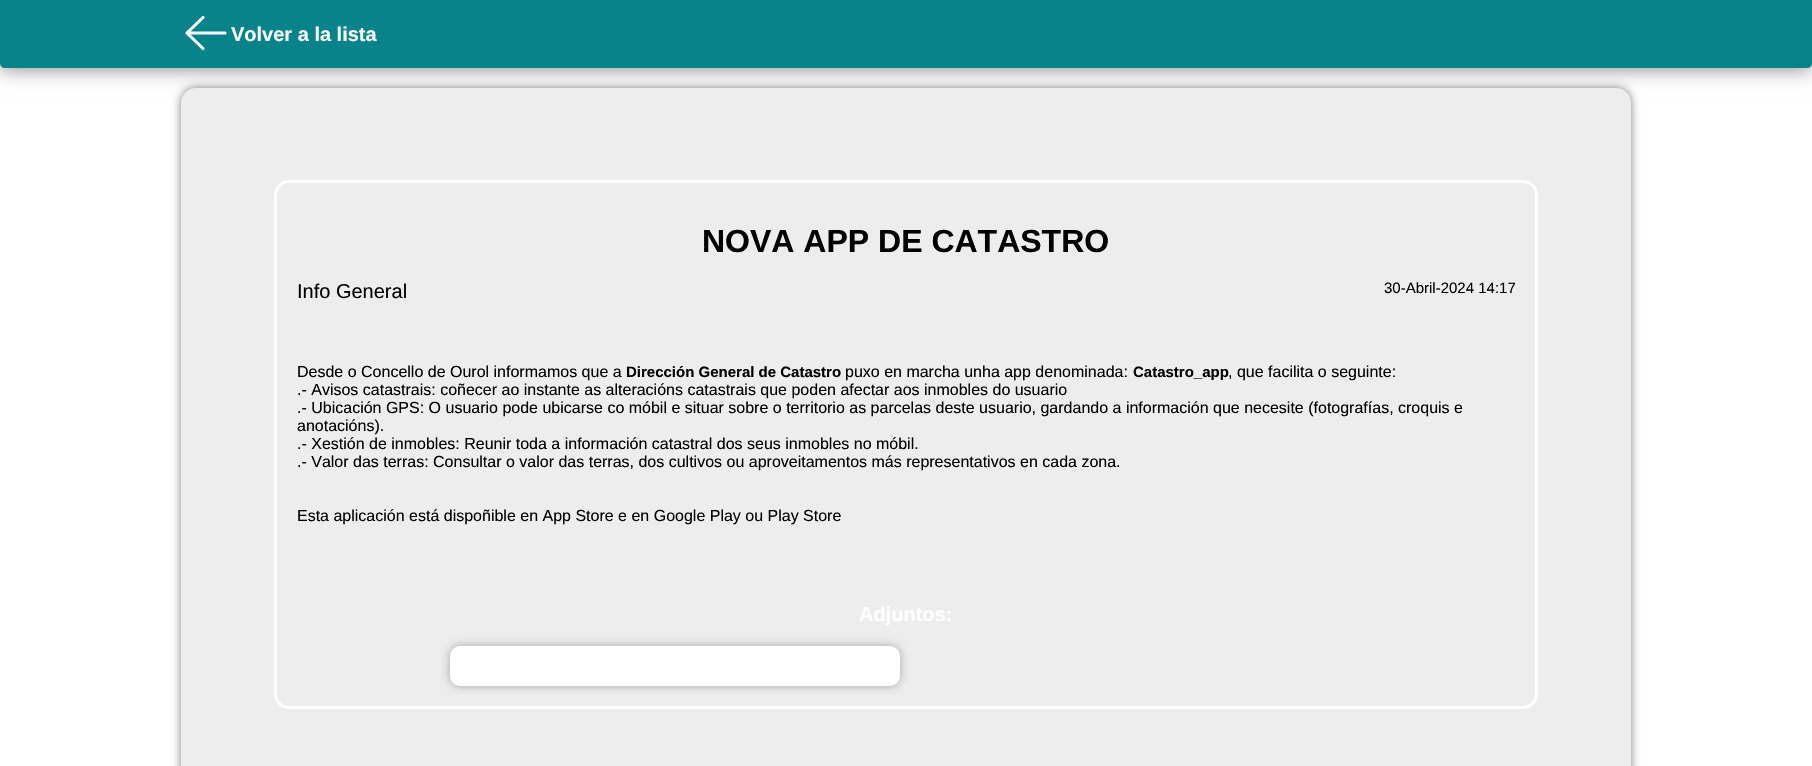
#include "include/core/SkBlurTypes.h"
#include "include/core/SkCanvas.h"
#include "include/core/SkData.h"
#include "include/core/SkFont.h"
#include "include/core/SkFontMgr.h"
#include "include/core/SkImage.h"
#include "include/core/SkMaskFilter.h"
#include "include/core/SkPaint.h"
#include "include/core/SkPathBuilder.h"
#include "include/core/SkTextBlob.h"
#include "include/effects/SkDashPathEffect.h"
#include "include/effects/SkGradientShader.h"
#include "include/utils/SkParsePath.h"

extern sk_sp<SkFontMgr> fontMgr;

void draw(SkCanvas* canvas) {
    SkPaint p;
    p.setAntiAlias(true);
    auto font = [&](const char* family, int weight, float size, bool italic = false) {
        SkFontStyle style(weight, SkFontStyle::kNormal_Width,
            italic ? SkFontStyle::kItalic_Slant : SkFontStyle::kUpright_Slant);
        SkFont result(fontMgr->matchFamilyStyle(family, style), size);
        result.setSubpixel(true);
        return result;
    };
    canvas->clear(0xFFFFFFFF);
    p.setColor(0x80000000);
    p.setMaskFilter(SkMaskFilter::MakeBlur(kNormal_SkBlurStyle, 10));
    canvas->drawRect(SkRect::MakeLTRB(0, 0, 1812, 68), p);
    p.setMaskFilter(nullptr);
    p.setColor(0xFF08838A);
    canvas->drawPath(SkPathBuilder().moveTo(0, 0).lineTo(1812, 0).lineTo(1812, 63).cubicTo(1812, 66, 1810, 68, 1807, 68).lineTo(5, 68).cubicTo(2, 68, 0, 66, 0, 63).close().detach(), p);
    p.setStyle(SkPaint::kStroke_Style);
    p.setStrokeWidth(3.1f);
    p.setStrokeCap(SkPaint::kRound_Cap);
    p.setStrokeJoin(SkPaint::kRound_Join);
    p.setColor(0xFFFFFFFF);
    canvas->drawPath(SkPathBuilder().moveTo(203, 48.5f).lineTo(187, 33).moveTo(187, 33).lineTo(203, 17.5f).moveTo(187, 33).lineTo(225, 33).detach(), p);
    auto font1 = font("Liberation Sans", 700, 20);
    p.setStyle(SkPaint::kFill_Style);
    canvas->drawString("Volver a la lista", 231, 41, font1, p);
    p.setColor(0x80000000);
    p.setMaskFilter(SkMaskFilter::MakeBlur(kNormal_SkBlurStyle, 5));
    canvas->drawRoundRect(SkRect::MakeLTRB(181, 88, 1631, 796), 15, 15, p);
    p.setMaskFilter(nullptr);
    p.setColor(0xFFEDEDED);
    canvas->drawRoundRect(SkRect::MakeLTRB(181, 88, 1631, 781), 15, 15, p);
    p.setStyle(SkPaint::kStroke_Style);
    p.setStrokeWidth(3);
    p.setStrokeCap(SkPaint::kButt_Cap);
    p.setStrokeJoin(SkPaint::kMiter_Join);
    p.setColor(0xFFFFFFFF);
    canvas->drawRoundRect(SkRect::MakeLTRB(275.5f, 181.5f, 1536.5f, 707.5f), 13.5f, 13.5f, p);
    auto font2 = font("Liberation Sans", 700, 32);
    p.setStyle(SkPaint::kFill_Style);
    p.setColor(0xFF000000);
    canvas->drawString("NOVA APP DE CATASTRO", 702, 252, font2, p);
    auto font3 = font("Liberation Sans", 400, 20);
    canvas->drawString("Info General", 297, 298, font3, p);
    auto font4 = font("Liberation Sans", 400, 15);
    canvas->drawString("30-Abril-2024 14:17", 1384, 293, font4, p);
    auto font5 = font("Liberation Sans", 400, 16);
    canvas->drawString("Desde o Concello de Ourol informamos que a", 297, 377, font5, p);
    auto font6 = font("Liberation Sans", 700, 15);
    canvas->drawString("Dirección General de Catastro", 626, 377, font6, p);
    canvas->drawString("puxo en marcha unha app denominada:", 845, 377, font5, p);
    canvas->drawString("Catastro_app", 1133, 377, font6, p);
    {
        const struct { const char* s; float x, y; } items[] = {
            {", que facilita o seguinte:", 1228, 377},
            {".- Avisos catastrais: coñecer ao instante as alteracións catastrais que poden afectar aos inmobles do usuario", 297, 395},
            {".- Ubicación GPS: O usuario pode ubicarse co móbil e situar sobre o territorio as parcelas deste usuario, gardando a información que necesite (fotografías, croquis e", 297, 413},
            {"anotacións).", 297, 431},
            {".- Xestión de inmobles: Reunir toda a información catastral dos seus inmobles no móbil.", 297, 449},
            {".- Valor das terras: Consultar o valor das terras, dos cultivos ou aproveitamentos más representativos en cada zona.", 297, 467},
            {"Esta aplicación está dispoñible en App Store e en Google Play ou Play Store", 297, 521},
        };
        for (auto [s, x, y] : items) {
            canvas->drawString(s, x, y, font5, p);
        }
    }
    p.setColor(0xFFFFFFFF);
    canvas->drawString("Adjuntos:", 859, 621, font1, p);
    p.setColor(0x4D000000);
    p.setMaskFilter(SkMaskFilter::MakeBlur(kNormal_SkBlurStyle, 5));
    canvas->drawRoundRect(SkRect::MakeLTRB(450, 646, 900, 686), 10, 10, p);
    p.setMaskFilter(nullptr);
    p.setColor(0xFFFFFFFF);
    canvas->drawRoundRect(SkRect::MakeLTRB(450, 646, 900, 686), 10, 10, p);
}
